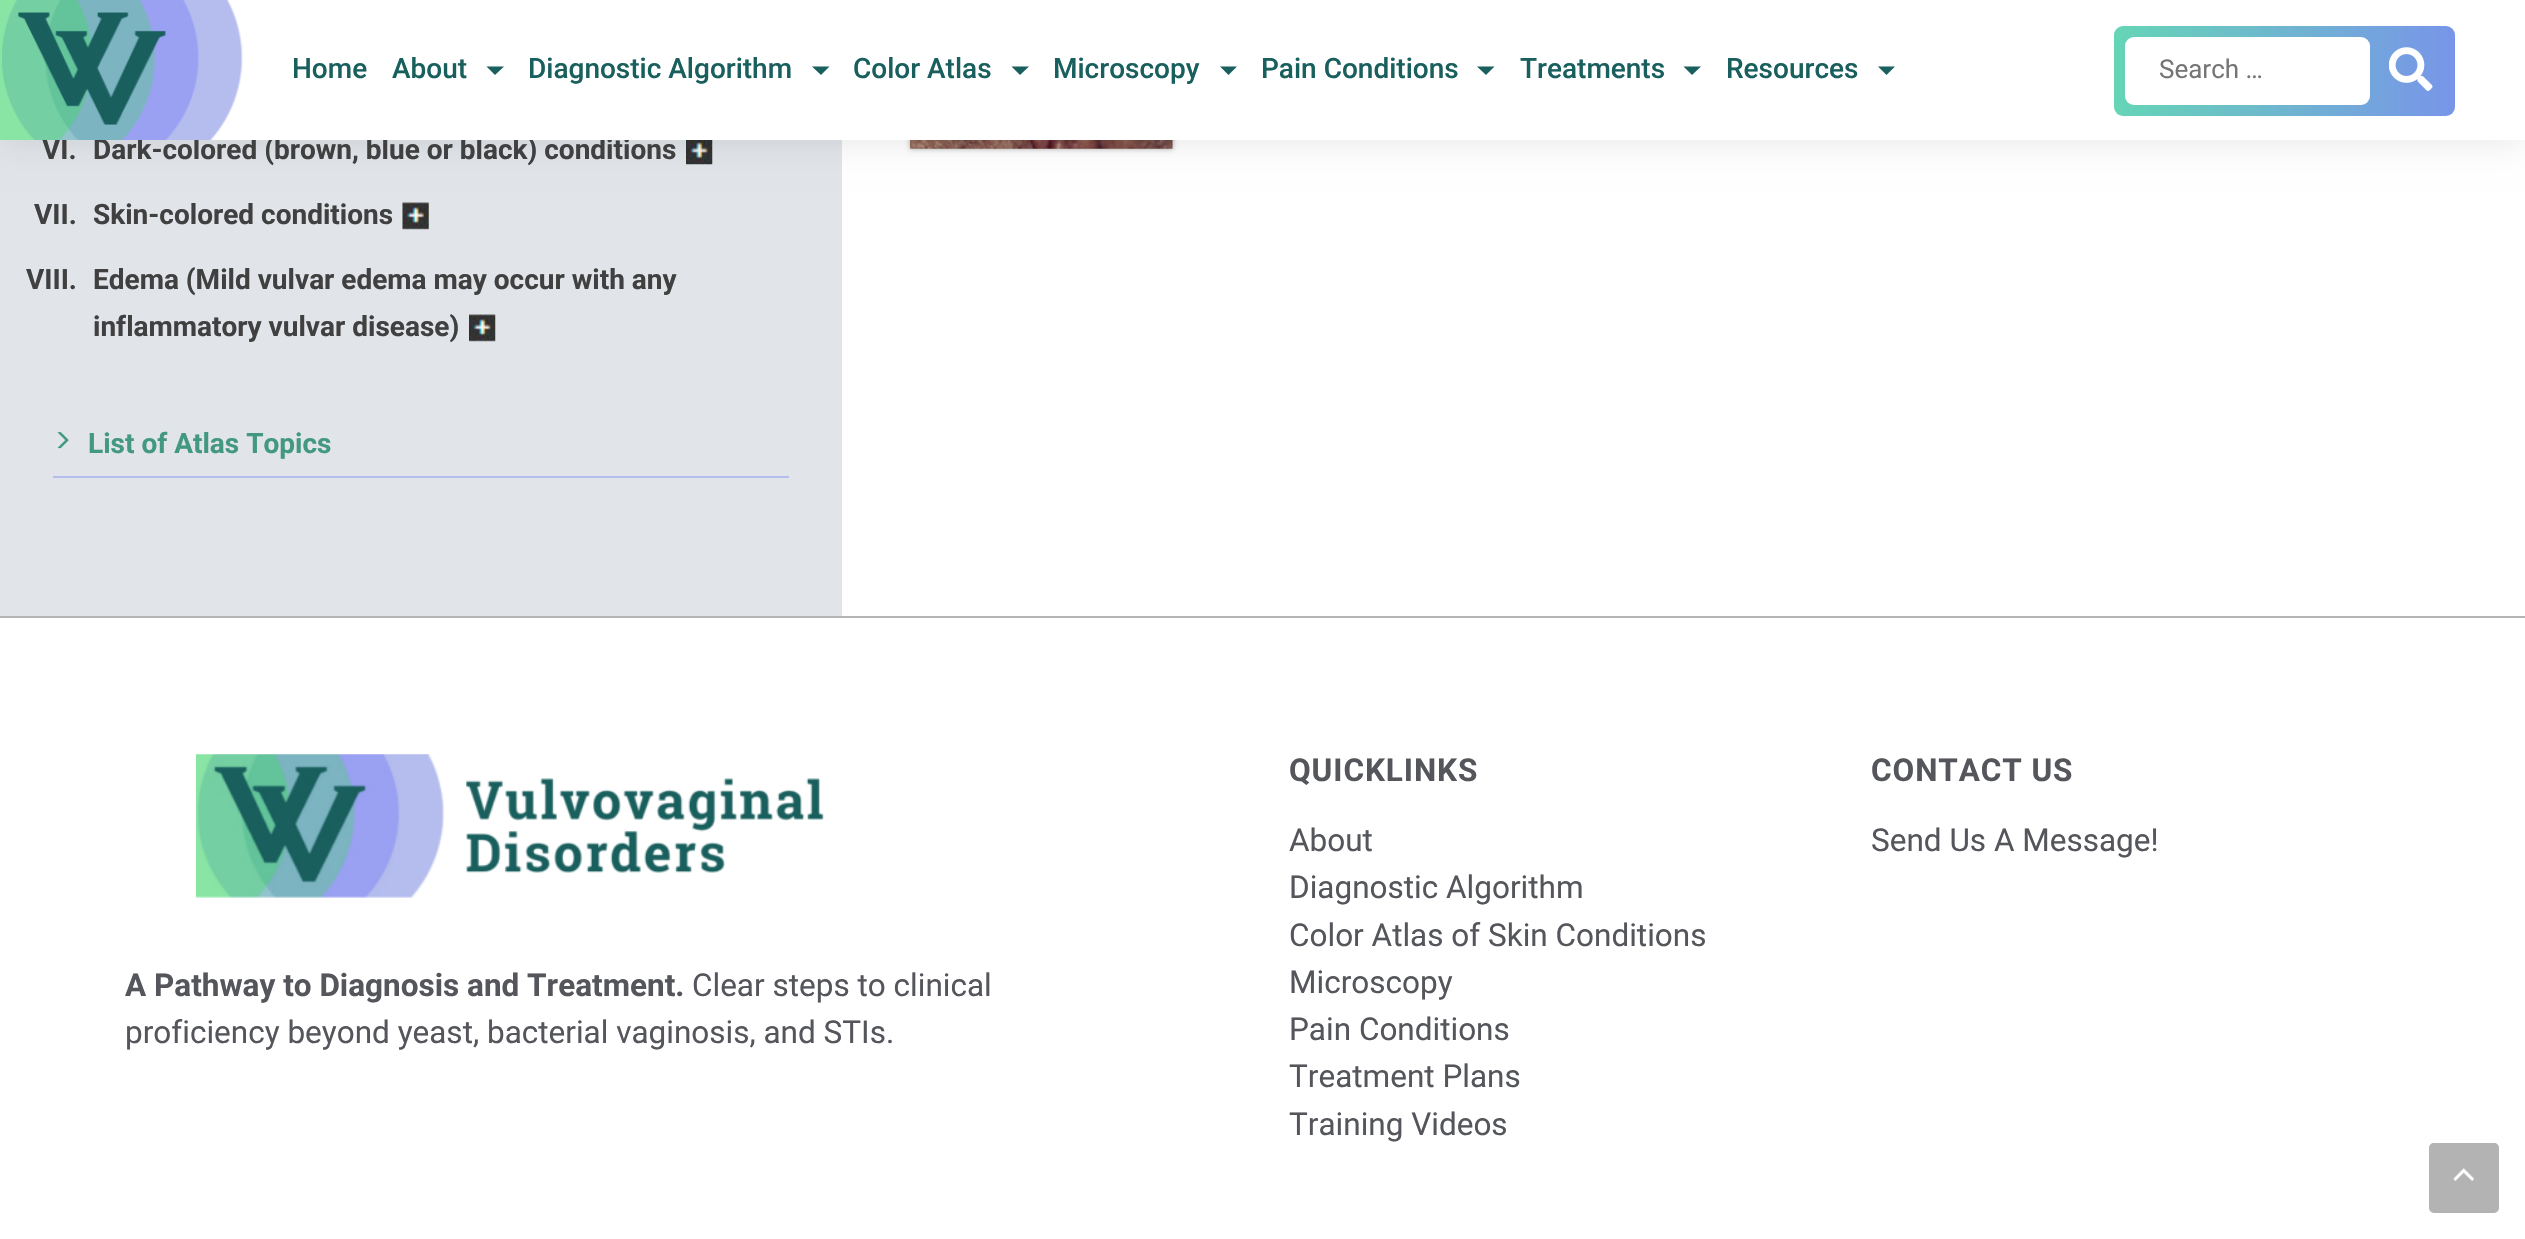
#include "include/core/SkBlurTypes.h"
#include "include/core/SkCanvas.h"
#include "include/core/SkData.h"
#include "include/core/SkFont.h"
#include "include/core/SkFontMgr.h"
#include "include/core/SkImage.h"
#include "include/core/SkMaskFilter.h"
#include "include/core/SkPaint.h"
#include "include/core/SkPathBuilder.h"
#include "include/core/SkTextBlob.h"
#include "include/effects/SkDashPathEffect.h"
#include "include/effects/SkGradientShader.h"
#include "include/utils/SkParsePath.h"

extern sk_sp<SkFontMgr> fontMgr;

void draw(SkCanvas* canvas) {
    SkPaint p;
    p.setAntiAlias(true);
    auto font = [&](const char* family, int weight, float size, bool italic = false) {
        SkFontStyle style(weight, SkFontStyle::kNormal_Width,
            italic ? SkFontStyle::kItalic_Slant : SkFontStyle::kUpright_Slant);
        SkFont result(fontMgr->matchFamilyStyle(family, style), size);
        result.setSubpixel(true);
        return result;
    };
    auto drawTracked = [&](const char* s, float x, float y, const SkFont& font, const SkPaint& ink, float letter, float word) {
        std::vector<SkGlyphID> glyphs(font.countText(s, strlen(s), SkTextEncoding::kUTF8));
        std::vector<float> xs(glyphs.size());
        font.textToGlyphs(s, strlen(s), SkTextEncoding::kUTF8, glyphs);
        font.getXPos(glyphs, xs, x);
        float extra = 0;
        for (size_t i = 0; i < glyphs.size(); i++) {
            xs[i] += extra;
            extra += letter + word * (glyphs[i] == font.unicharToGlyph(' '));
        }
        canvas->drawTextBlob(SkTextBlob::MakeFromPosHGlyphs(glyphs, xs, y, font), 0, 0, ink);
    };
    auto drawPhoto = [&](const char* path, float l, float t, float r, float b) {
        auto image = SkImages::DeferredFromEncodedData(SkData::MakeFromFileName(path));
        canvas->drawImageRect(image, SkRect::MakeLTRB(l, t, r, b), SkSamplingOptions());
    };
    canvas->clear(0xFFFFFFFF);
    p.setColor(0xFFE1E5EA);
    canvas->drawRect(SkRect::MakeLTRB(0, 140, 842, 616), p);
    p.setColor(0x4D000000);
    p.setMaskFilter(SkMaskFilter::MakeBlur(kNormal_SkBlurStyle, 2.5f));
    canvas->drawRect(SkRect::MakeLTRB(910, -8, 1173, 149), p);
    p.setMaskFilter(nullptr);
    drawPhoto("media/3.png", 910, 140, 1173, 149);
    drawPhoto("media/4.png", 686, 140, 713, 165);
    p.setColor(0x1A000000);
    p.setMaskFilter(SkMaskFilter::MakeBlur(kNormal_SkBlurStyle, 17.5f));
    canvas->drawRect(SkRect::MakeLTRB(0, 0, 2525, 140), p);
    p.setMaskFilter(nullptr);
    auto font1 = font("Roboto", 700, 28);
    p.setColor(0xFF404040);
    canvas->drawString("Dark-colored (brown, blue or black) conditions", 93, 159, font1, p);
    p.setColor(0xFFFFFFFF);
    canvas->drawRect(SkRect::MakeLTRB(209, 0, 2525, 140), p);
    p.setColor(0xFF404040);
    canvas->drawString("VI.", 42, 159, font1, p);
    drawPhoto("media/1.png", 0, 0, 243, 140);
    auto font2 = font("Roboto", 500, 28);
    p.setColor(0xFF195F5D);
    canvas->drawString("Home", 292, 78, font2, p);
    canvas->drawString("About", 392, 78, font2, p);
    canvas->drawPath(SkPathBuilder().moveTo(486.5f, 66.5f).lineTo(504, 66.5f).lineTo(495, 75).close().detach(), p);
    canvas->drawString("Diagnostic Algorithm", 528, 78, font2, p);
    canvas->drawPath(SkPathBuilder().moveTo(812, 66.5f).lineTo(829.5f, 66.5f).lineTo(821, 75).close().detach(), p);
    canvas->drawString("Color Atlas", 853, 78, font2, p);
    canvas->drawPath(SkPathBuilder().moveTo(1011.5f, 66.5f).lineTo(1029, 66.5f).lineTo(1020, 75).close().detach(), p);
    canvas->drawString("Microscopy", 1053, 78, font2, p);
    canvas->drawPath(SkPathBuilder().moveTo(1220, 66.5f).lineTo(1237, 66.5f).lineTo(1228.5f, 75).close().detach(), p);
    canvas->drawString("Pain Conditions", 1261, 78, font2, p);
    canvas->drawPath(SkPathBuilder().moveTo(1477, 66.5f).lineTo(1494.5f, 66.5f).lineTo(1486, 75).close().detach(), p);
    canvas->drawString("Treatments", 1520, 78, font2, p);
    canvas->drawPath(SkPathBuilder().moveTo(1683.5f, 66.5f).lineTo(1701, 66.5f).lineTo(1692, 75).close().detach(), p);
    canvas->drawString("Resources", 1726, 78, font2, p);
    canvas->drawPath(SkPathBuilder().moveTo(1878, 66.5f).lineTo(1895, 66.5f).lineTo(1886.5f, 75).close().detach(), p);
    {
        const SkColor colors[] = {0xFF65D5B6, 0xFF7895E9};
        const float stops[] = {0, 1};
        const SkPoint ends[] = {{2114, 71}, {2455, 71}};
        p.setShader(SkGradientShader::MakeLinear(ends, colors, stops, 2, SkTileMode::kClamp));
        p.setAlpha(255);
    }
    canvas->drawRoundRect(SkRect::MakeLTRB(2114, 26, 2455, 116), 9, 9, p);
    p.setShader(nullptr);
    p.setColor(0xFFFFFFFF);
    canvas->drawRoundRect(SkRect::MakeLTRB(2125, 37, 2370, 105), 9, 9, p);
    auto font3 = font("Roboto", 400, 26);
    p.setColor(0xFF757575);
    canvas->drawString("Search …", 2159, 78, font3, p);
    drawPhoto("media/2.png", 2389, 47, 2433, 91);
    p.setColor(0xFF404040);
    canvas->drawString("VII.", 34, 224, font1, p);
    canvas->drawString("Skin-colored conditions", 93, 224, font1, p);
    drawPhoto("media/5.png", 402, 202, 429, 230);
    {
        const struct { const char* s; float x, y; } items[] = {
            {"VIII.", 26, 289},
            {"Edema (Mild vulvar edema may occur with any", 93, 289},
            {"inflammatory vulvar disease)", 93, 336},
        };
        for (auto [s, x, y] : items) {
            canvas->drawString(s, x, y, font1, p);
        }
    }
    drawPhoto("media/6.png", 469, 314, 496, 342);
    p.setColor(0xFFB5BDEE);
    canvas->drawRect(SkRect::MakeLTRB(53, 476, 789, 478), p);
    drawPhoto("media/7.png", 57, 432, 69, 449);
    p.setColor(0xFF439880);
    canvas->drawString("List of Atlas Topics", 88, 453, font1, p);
    p.setColor(0xFFB5B5B5);
    canvas->drawRect(SkRect::MakeLTRB(0, 616, 2525, 618), p);
    auto font4 = font("Roboto", 700, 31.5f);
    p.setColor(0xFF54565C);
    drawTracked("QUICKLINKS", 1289, 781, font4, p, 0.9f, 0);
    auto font5 = font("Roboto", 400, 31.5f);
    {
        const struct { const char* s; float x, y; } items[] = {
            {"About", 1289, 851},
            {"Diagnostic Algorithm", 1289, 898},
            {"Color Atlas of Skin Conditions", 1289, 946},
            {"Microscopy", 1289, 993},
            {"Pain Conditions", 1289, 1040},
            {"Treatment Plans", 1289, 1087},
            {"Training Videos", 1289, 1135},
        };
        for (auto [s, x, y] : items) {
            canvas->drawString(s, x, y, font5, p);
        }
    }
    drawTracked("CONTACT US", 1871, 781, font4, p, 0.9f, 0);
    canvas->drawString("Send Us A Message!", 1871, 851, font5, p);
    drawPhoto("media/8.png", 196, 754, 824, 898);
    canvas->drawString("A Pathway to Diagnosis and Treatment.", 125, 996, font4, p);
    canvas->drawString("Clear steps to clinical", 692, 996, font5, p);
    canvas->drawString("proficiency beyond yeast, bacterial vaginosis, and STIs.", 125, 1043, font5, p);
    p.setColor(0xFFB3B3B3);
    canvas->drawPath(SkPathBuilder().moveTo(2494, 1213).lineTo(2434, 1213).cubicTo(2431, 1213, 2429, 1210, 2429, 1208).lineTo(2429, 1148).cubicTo(2429, 1145, 2431, 1143, 2434, 1143).lineTo(2494, 1143).cubicTo(2497, 1143, 2499, 1145, 2499, 1148).lineTo(2499, 1208).cubicTo(2499, 1210, 2497, 1213, 2494, 1213).close().detach(), p);
    drawPhoto("media/9.png", 2453, 1168, 2474, 1181);
}
